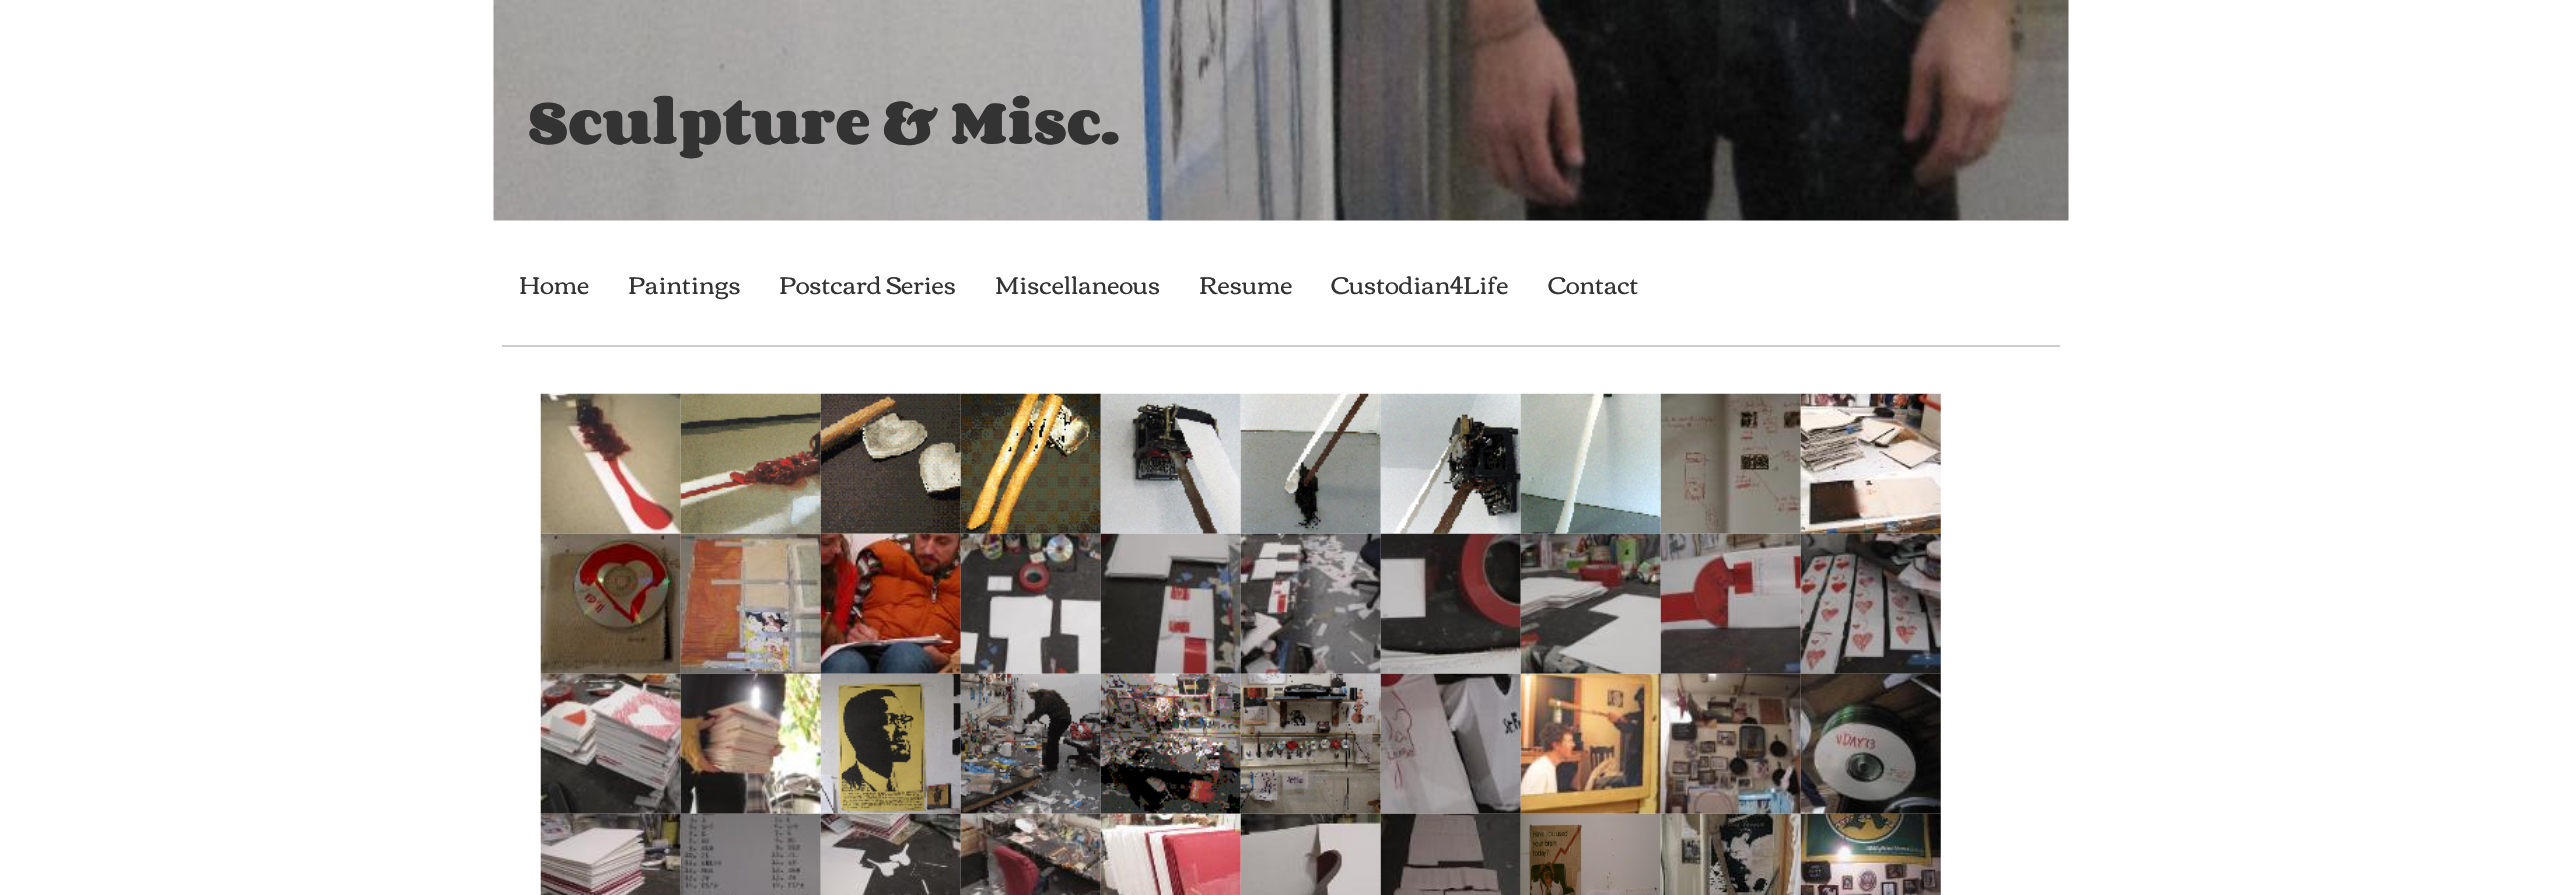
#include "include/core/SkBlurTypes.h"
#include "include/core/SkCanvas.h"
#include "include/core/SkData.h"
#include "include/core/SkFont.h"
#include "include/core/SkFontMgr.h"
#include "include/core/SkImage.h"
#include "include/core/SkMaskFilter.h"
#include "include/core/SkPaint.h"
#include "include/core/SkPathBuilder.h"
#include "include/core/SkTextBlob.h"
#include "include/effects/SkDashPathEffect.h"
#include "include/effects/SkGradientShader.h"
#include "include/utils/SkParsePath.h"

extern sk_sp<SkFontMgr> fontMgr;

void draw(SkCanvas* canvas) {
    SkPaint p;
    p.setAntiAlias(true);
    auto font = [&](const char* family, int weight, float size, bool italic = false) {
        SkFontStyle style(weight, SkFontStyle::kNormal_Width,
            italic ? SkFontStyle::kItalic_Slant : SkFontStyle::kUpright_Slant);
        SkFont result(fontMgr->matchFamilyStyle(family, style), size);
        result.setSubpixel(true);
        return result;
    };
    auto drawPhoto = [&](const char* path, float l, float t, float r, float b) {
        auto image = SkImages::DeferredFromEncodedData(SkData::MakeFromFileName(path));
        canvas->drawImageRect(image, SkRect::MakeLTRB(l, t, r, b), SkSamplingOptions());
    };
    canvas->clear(0xFFFFFFFF);
    drawPhoto("media/1.png", 493, 0, 2069, 221);
    auto font1 = font("Corben", 700, 52.5f);
    p.setColor(0xFF333333);
    canvas->drawString("Sculpture & Misc.", 528, 144, font1, p);
    p.setColor(0xFFCCCCCC);
    canvas->drawRect(SkRect::MakeLTRB(502, 345, 2060, 347), p);
    auto font2 = font("Corben", 400, 24.5f);
    p.setColor(0xFF333333);
    {
        const struct { const char* s; float x, y; } items[] = {
            {"Home", 519, 294},
            {"Paintings", 628, 294},
            {"Postcard Series", 779, 294},
            {"Miscellaneous", 995, 294},
            {"Resume", 1199, 294},
            {"Custodian4Life", 1331, 294},
            {"Contact", 1548, 294},
        };
        for (auto [s, x, y] : items) {
            canvas->drawString(s, x, y, font2, p);
        }
    }
    drawPhoto("media/2.png", 540, 393, 681, 534);
    drawPhoto("media/3.png", 680, 393, 821, 534);
    drawPhoto("media/4.png", 820, 393, 961, 534);
    drawPhoto("media/5.png", 960, 393, 1101, 534);
    drawPhoto("media/6.png", 1100, 393, 1241, 534);
    drawPhoto("media/7.png", 1240, 393, 1381, 534);
    drawPhoto("media/8.png", 1380, 393, 1521, 534);
    drawPhoto("media/9.png", 1520, 393, 1661, 534);
    drawPhoto("media/10.png", 1660, 393, 1801, 534);
    drawPhoto("media/11.png", 1800, 393, 1941, 534);
    drawPhoto("media/12.png", 540, 533, 681, 674);
    drawPhoto("media/13.png", 680, 533, 821, 674);
    drawPhoto("media/14.png", 820, 533, 961, 674);
    drawPhoto("media/15.png", 960, 533, 1101, 674);
    drawPhoto("media/16.png", 1100, 533, 1241, 674);
    drawPhoto("media/17.png", 1240, 533, 1381, 674);
    drawPhoto("media/18.png", 1380, 533, 1521, 674);
    drawPhoto("media/19.png", 1520, 533, 1661, 674);
    drawPhoto("media/20.png", 1660, 533, 1801, 674);
    drawPhoto("media/21.png", 1800, 533, 1941, 674);
    drawPhoto("media/22.png", 540, 673, 681, 814);
    drawPhoto("media/23.png", 680, 673, 821, 814);
    drawPhoto("media/24.png", 820, 673, 961, 814);
    drawPhoto("media/25.png", 960, 673, 1101, 814);
    drawPhoto("media/26.png", 1100, 673, 1241, 814);
    drawPhoto("media/27.png", 1240, 673, 1381, 814);
    drawPhoto("media/28.png", 1380, 673, 1521, 814);
    drawPhoto("media/29.png", 1520, 673, 1661, 814);
    drawPhoto("media/30.png", 1660, 673, 1801, 814);
    drawPhoto("media/31.png", 1800, 673, 1941, 814);
    drawPhoto("media/32.png", 540, 813, 681, 895);
    drawPhoto("media/33.png", 680, 813, 821, 895);
    drawPhoto("media/34.png", 820, 813, 961, 895);
    drawPhoto("media/35.png", 960, 813, 1101, 895);
    drawPhoto("media/36.png", 1100, 813, 1241, 895);
    drawPhoto("media/37.png", 1240, 813, 1381, 895);
    drawPhoto("media/38.png", 1380, 813, 1521, 895);
    drawPhoto("media/39.png", 1520, 813, 1661, 895);
    drawPhoto("media/40.png", 1660, 813, 1801, 895);
    drawPhoto("media/41.png", 1800, 813, 1941, 895);
}
